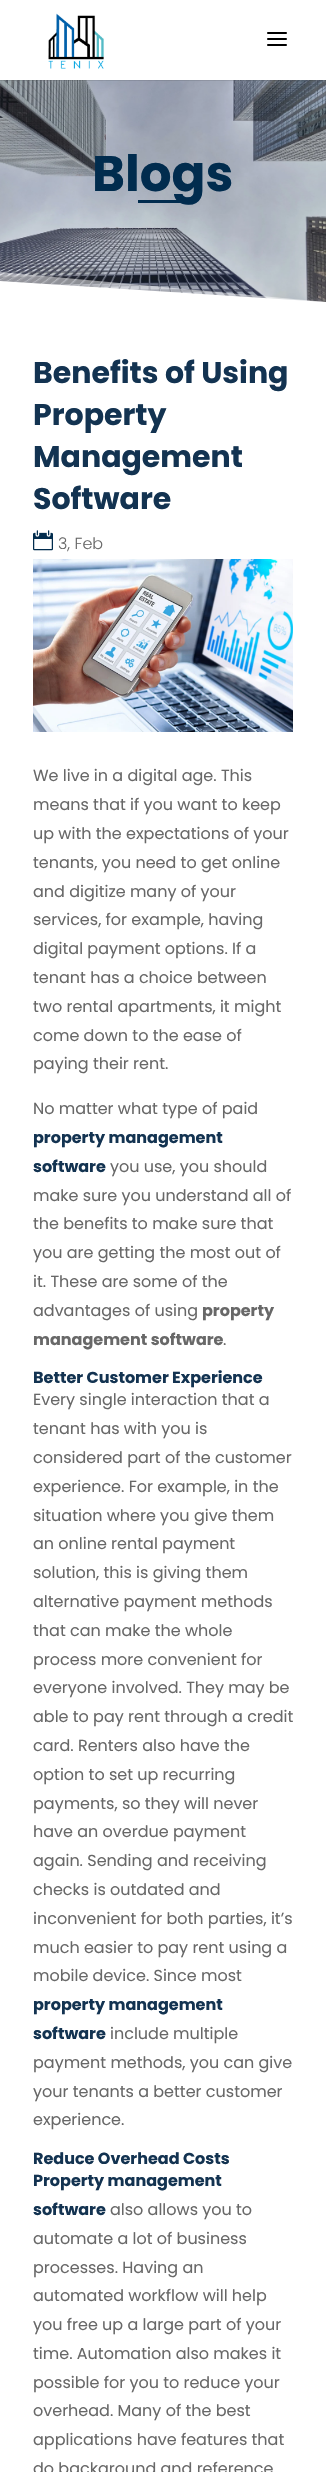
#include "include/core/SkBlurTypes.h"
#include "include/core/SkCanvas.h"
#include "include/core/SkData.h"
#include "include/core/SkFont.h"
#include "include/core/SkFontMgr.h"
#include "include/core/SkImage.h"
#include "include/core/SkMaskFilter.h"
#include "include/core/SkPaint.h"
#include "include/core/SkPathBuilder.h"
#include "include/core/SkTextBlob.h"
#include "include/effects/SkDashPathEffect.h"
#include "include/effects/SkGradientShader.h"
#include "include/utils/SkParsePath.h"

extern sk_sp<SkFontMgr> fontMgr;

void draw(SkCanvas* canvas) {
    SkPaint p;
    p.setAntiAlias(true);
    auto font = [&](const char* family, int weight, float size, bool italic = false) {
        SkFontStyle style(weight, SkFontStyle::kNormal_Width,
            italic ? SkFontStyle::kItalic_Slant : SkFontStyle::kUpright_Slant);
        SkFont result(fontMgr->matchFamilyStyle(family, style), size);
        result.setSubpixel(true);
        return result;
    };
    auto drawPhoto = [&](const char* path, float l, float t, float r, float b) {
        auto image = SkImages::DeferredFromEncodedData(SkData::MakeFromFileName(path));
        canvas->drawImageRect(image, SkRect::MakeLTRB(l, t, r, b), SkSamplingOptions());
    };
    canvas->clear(0xFFFFFFFF);
    drawPhoto("media/3.png", 0, 80, 326, 302);
    p.setColor(0x1A000000);
    canvas->drawRect(SkRect::MakeLTRB(0, 80, 326, 81), p);
    drawPhoto("media/1.png", 48, 13, 104, 69);
    drawPhoto("media/2.png", 267, 32, 287, 46);
    auto font1 = font("Poppins", 700, 50);
    p.setColor(0xFF012C4E);
    canvas->drawString("Blogs", 92, 191, font1, p);
    canvas->drawRect(SkRect::MakeLTRB(138, 200, 188, 203), p);
    p.setColor(0x80FFFFFF);
    canvas->drawPath(SkPathBuilder().moveTo(0, 272).lineTo(0, 302).lineTo(326, 302).close().detach(), p);
    p.setColor(0xFFFFFFFF);
    canvas->drawPath(SkPathBuilder().moveTo(0, 281).lineTo(0, 302).lineTo(326, 302).close().detach(), p);
    auto font2 = font("Poppins", 700, 30);
    p.setColor(0xFF133351);
    {
        const struct { const char* s; float x, y; } items[] = {
            {"Benefits of Using", 33, 383},
            {"Property", 33, 425},
            {"Management", 33, 467},
            {"Software", 33, 509},
        };
        for (auto [s, x, y] : items) {
            canvas->drawString(s, x, y, font2, p);
        }
    }
    drawPhoto("media/4.png", 33, 530, 53, 551);
    auto font3 = font("Poppins", 300, 16);
    p.setColor(0xFF686868);
    canvas->drawString("3, Feb", 58, 549, font3, p);
    drawPhoto("media/5.png", 33, 559, 293, 732);
    auto font4 = font("Poppins", 400, 16);
    {
        const struct { const char* s; float x, y; } items[] = {
            {"We live in a digital age. This", 33, 781},
            {"means that if you want to keep", 33, 810},
            {"up with the expectations of your", 33, 839},
            {"tenants, you need to get online", 33, 868},
            {"and digitize many of your", 33, 897},
            {"services, for example, having", 33, 925},
            {"digital payment options. If a", 33, 954},
            {"tenant has a choice between", 33, 983},
            {"two rental apartments, it might", 33, 1012},
            {"come down to the ease of", 33, 1041},
            {"paying their rent.", 33, 1069},
            {"No matter what type of paid", 33, 1114},
        };
        for (auto [s, x, y] : items) {
            canvas->drawString(s, x, y, font4, p);
        }
    }
    auto font5 = font("Poppins", 700, 16);
    p.setColor(0xFF133351);
    canvas->drawString("property management", 33, 1143, font5, p);
    canvas->drawString("software", 33, 1172, font5, p);
    p.setColor(0xFF686868);
    {
        const struct { const char* s; float x, y; } items[] = {
            {"you use, you should", 110, 1172},
            {"make sure you understand all of", 33, 1201},
            {"the benefits to make sure that", 33, 1229},
            {"you are getting the most out of", 33, 1258},
            {"it. These are some of the", 33, 1287},
            {"advantages of using", 33, 1316},
        };
        for (auto [s, x, y] : items) {
            canvas->drawString(s, x, y, font4, p);
        }
    }
    canvas->drawString("property", 202, 1316, font5, p);
    canvas->drawString("management software", 33, 1345, font5, p);
    canvas->drawString(".", 223, 1345, font4, p);
    p.setColor(0xFF133351);
    canvas->drawString("Better Customer Experience", 33, 1383, font5, p);
    p.setColor(0xFF686868);
    {
        const struct { const char* s; float x, y; } items[] = {
            {"Every single interaction that a", 33, 1405},
            {"tenant has with you is", 33, 1434},
            {"considered part of the customer", 33, 1463},
            {"experience. For example, in the", 33, 1492},
            {"situation where you give them", 33, 1521},
            {"an online rental payment", 33, 1549},
            {"solution, this is giving them", 33, 1578},
            {"alternative payment methods", 33, 1607},
            {"that can make the whole", 33, 1636},
            {"process more convenient for", 33, 1665},
            {"everyone involved. They may be", 33, 1693},
            {"able to pay rent through a credit", 33, 1722},
            {"card. Renters also have the", 33, 1751},
            {"option to set up recurring", 33, 1780},
            {"payments, so they will never", 33, 1809},
            {"have an overdue payment", 33, 1837},
            {"again. Sending and receiving", 33, 1866},
            {"checks is outdated and", 33, 1895},
            {"inconvenient for both parties, it’s", 33, 1924},
            {"much easier to pay rent using a", 33, 1953},
            {"mobile device. Since most", 33, 1981},
        };
        for (auto [s, x, y] : items) {
            canvas->drawString(s, x, y, font4, p);
        }
    }
    p.setColor(0xFF133351);
    canvas->drawString("property management", 33, 2010, font5, p);
    canvas->drawString("software", 33, 2039, font5, p);
    p.setColor(0xFF686868);
    {
        const struct { const char* s; float x, y; } items[] = {
            {"include multiple", 110, 2039},
            {"payment methods, you can give", 33, 2068},
            {"your tenants a better customer", 33, 2097},
            {"experience.", 33, 2125},
        };
        for (auto [s, x, y] : items) {
            canvas->drawString(s, x, y, font4, p);
        }
    }
    p.setColor(0xFF133351);
    {
        const struct { const char* s; float x, y; } items[] = {
            {"Reduce Overhead Costs", 33, 2164},
            {"Property management", 33, 2186},
            {"software", 33, 2215},
        };
        for (auto [s, x, y] : items) {
            canvas->drawString(s, x, y, font5, p);
        }
    }
    p.setColor(0xFF686868);
    {
        const struct { const char* s; float x, y; } items[] = {
            {"also allows you to", 110, 2215},
            {"automate a lot of business", 33, 2244},
            {"processes. Having an", 33, 2273},
            {"automated workflow will help", 33, 2301},
            {"you free up a large part of your", 33, 2330},
            {"time. Automation also makes it", 33, 2359},
            {"possible for you to reduce your", 33, 2388},
            {"overhead. Many of the best", 33, 2416},
            {"applications have features that", 33, 2445},
            {"do background and reference", 33, 2474},
        };
        for (auto [s, x, y] : items) {
            canvas->drawString(s, x, y, font4, p);
        }
    }
}
